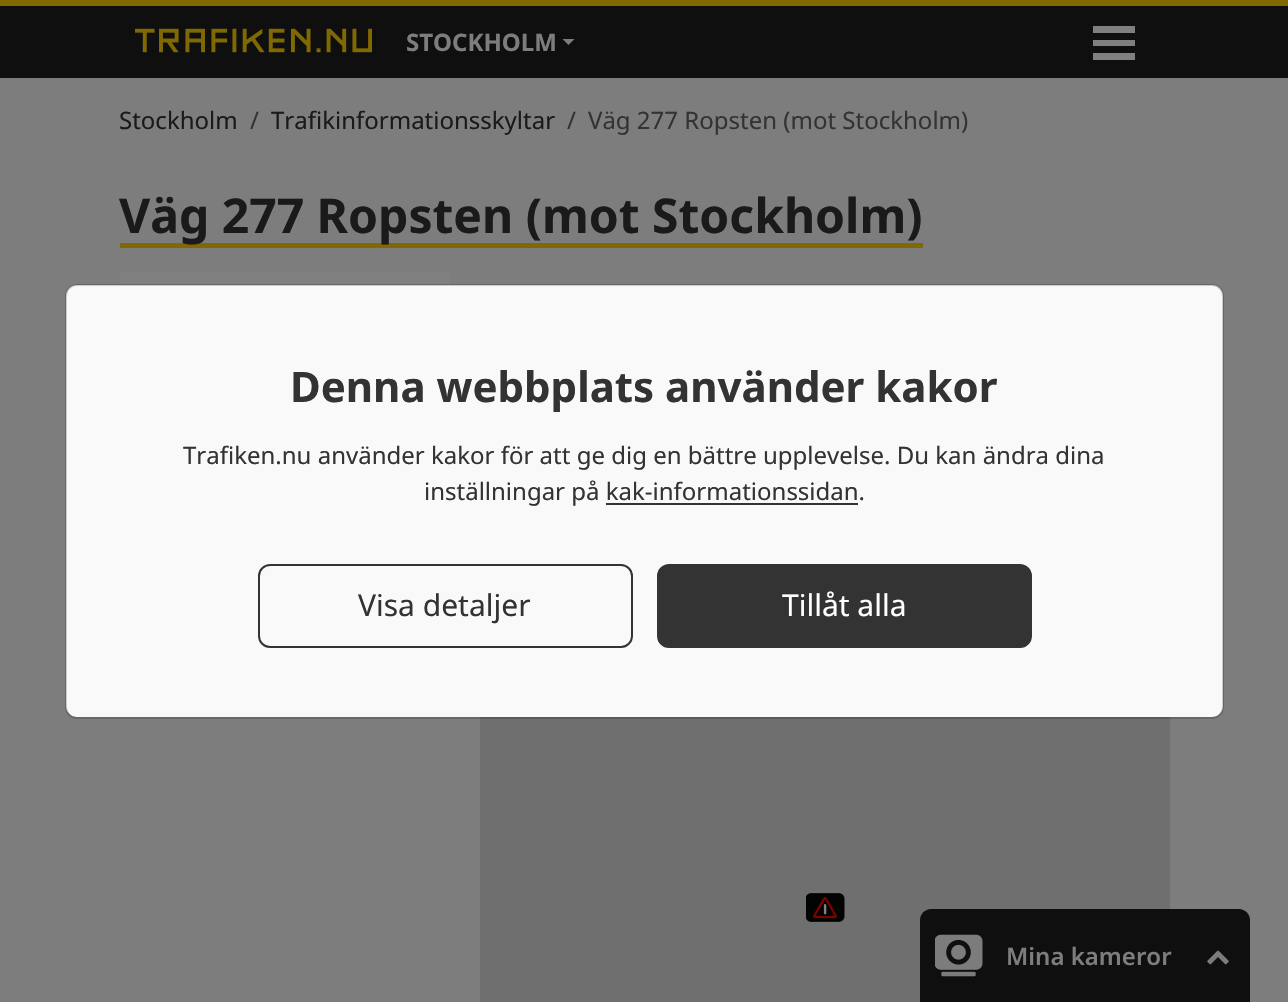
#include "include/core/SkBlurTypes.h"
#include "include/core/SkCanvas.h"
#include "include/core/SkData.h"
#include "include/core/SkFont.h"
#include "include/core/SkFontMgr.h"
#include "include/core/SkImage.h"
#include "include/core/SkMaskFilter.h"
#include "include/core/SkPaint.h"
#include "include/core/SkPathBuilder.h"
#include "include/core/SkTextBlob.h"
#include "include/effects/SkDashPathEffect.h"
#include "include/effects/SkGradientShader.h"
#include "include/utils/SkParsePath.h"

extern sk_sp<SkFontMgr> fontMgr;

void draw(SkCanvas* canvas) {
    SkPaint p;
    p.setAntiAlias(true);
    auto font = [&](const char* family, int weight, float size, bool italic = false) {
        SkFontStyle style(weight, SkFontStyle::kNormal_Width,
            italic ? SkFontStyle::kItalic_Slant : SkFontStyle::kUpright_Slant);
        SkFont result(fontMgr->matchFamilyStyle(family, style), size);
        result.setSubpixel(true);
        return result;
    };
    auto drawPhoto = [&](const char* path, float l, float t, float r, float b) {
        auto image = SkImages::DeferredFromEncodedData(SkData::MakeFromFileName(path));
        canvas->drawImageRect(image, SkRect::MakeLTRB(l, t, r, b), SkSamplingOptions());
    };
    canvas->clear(0xFF7D7D7D);
    p.setColor(0xFF0F0F0F);
    canvas->drawRect(SkRect::MakeLTRB(0, 6, 1288, 78), p);
    p.setColor(0xFF806900);
    canvas->drawRect(SkRect::MakeLTRB(0, 0, 1288, 6), p);
    drawPhoto("media/1.png", 135, 28, 372, 53);
    auto font1 = font("Noto Sans", 700, 24);
    p.setColor(0xFF7D7D7D);
    canvas->drawString("STOCKHOLM", 406, 51, font1, p);
    canvas->drawPath(SkPathBuilder().moveTo(562.5f, 39).lineTo(574.5f, 39).lineTo(568.5f, 45).close().detach(), p);
    p.setColor(0xFF808080);
    canvas->drawPath(SkPathBuilder(SkPathFillType::kEvenOdd).moveTo(1093, 60).lineTo(1135, 60).lineTo(1135, 53).lineTo(1093, 53).close().moveTo(1093, 46).lineTo(1135, 46).lineTo(1135, 40).lineTo(1093, 40).close().moveTo(1093, 33).lineTo(1135, 33).lineTo(1135, 26).lineTo(1093, 26).close().detach(), p);
    auto font2 = font("Noto Sans", 400, 24);
    p.setColor(0xFF1A1A1A);
    canvas->drawString("Stockholm", 119, 129, font2, p);
    p.setColor(0xFF333333);
    canvas->drawString("/", 250, 129, font2, p);
    p.setColor(0xFF1A1A1A);
    canvas->drawString("Trafikinformationsskyltar", 271, 129, font2, p);
    p.setColor(0xFF333333);
    canvas->drawString("/", 567, 129, font2, p);
    canvas->drawString("Väg 277 Ropsten (mot Stockholm)", 588, 129, font2, p);
    p.setColor(0xFF806900);
    canvas->drawRect(SkRect::MakeLTRB(120, 243, 923, 248), p);
    auto font3 = font("Noto Sans", 700, 48);
    p.setColor(0xFF1A1A1A);
    canvas->drawString("Väg 277 Ropsten (mot Stockholm)", 119, 233, font3, p);
    p.setColor(0xFF808080);
    canvas->drawRect(SkRect::MakeLTRB(120, 272, 450, 285), p);
    p.setColor(0xFF6F6F6F);
    canvas->drawRect(SkRect::MakeLTRB(480, 717, 1170, 1002), p);
    drawPhoto("media/2.png", 806, 893, 845, 922);
    p.setColor(0xFFF9F9F9);
    canvas->drawRoundRect(SkRect::MakeLTRB(66, 285, 1223, 717), 11, 11, p);
    p.setStyle(SkPaint::kStroke_Style);
    p.setStrokeWidth(2);
    p.setColor(0x2E000000);
    canvas->drawRoundRect(SkRect::MakeLTRB(66, 285, 1223, 718), 11, 11, p);
    auto font4 = font("Noto Sans", 700, 42);
    p.setStyle(SkPaint::kFill_Style);
    p.setColor(0xFF333333);
    canvas->drawString("Denna webbplats använder kakor", 290, 402, font4, p);
    canvas->drawString("Trafiken.nu använder kakor för att ge dig en bättre upplevelse. Du kan ändra dina", 183, 464, font2, p);
    canvas->drawString("inställningar på kak-informationssidan.", 424, 500, font2, p);
    canvas->drawRect(SkRect::MakeLTRB(606, 503, 858, 505), p);
    p.setStyle(SkPaint::kStroke_Style);
    canvas->drawRoundRect(SkRect::MakeLTRB(259, 565, 632, 647), 11, 11, p);
    auto font5 = font("Noto Sans", 400, 30);
    p.setStyle(SkPaint::kFill_Style);
    canvas->drawString("Visa detaljer", 358, 616, font5, p);
    canvas->drawRoundRect(SkRect::MakeLTRB(658, 565, 1031, 647), 11, 11, p);
    p.setStyle(SkPaint::kStroke_Style);
    canvas->drawRoundRect(SkRect::MakeLTRB(658, 565, 1031, 647), 11, 11, p);
    p.setStyle(SkPaint::kFill_Style);
    p.setColor(0xFFFFFFFF);
    canvas->drawString("Tillåt alla", 782, 616, font5, p);
    p.setColor(0xFF0F0F0F);
    canvas->drawPath(SkPathBuilder().moveTo(931, 909).lineTo(1239, 909).cubicTo(1245, 909, 1250, 914, 1250, 920).lineTo(1250, 1002).lineTo(920, 1002).lineTo(920, 920).cubicTo(920, 914, 925, 909, 931, 909).close().detach(), p);
    drawPhoto("media/3.png", 935, 934, 983, 977);
    auto font6 = font("Noto Sans", 600, 24);
    p.setColor(0xFF7D7D7D);
    canvas->drawString("Mina kameror", 1006, 965, font6, p);
    drawPhoto("media/4.png", 1207, 950, 1229, 965);
}
